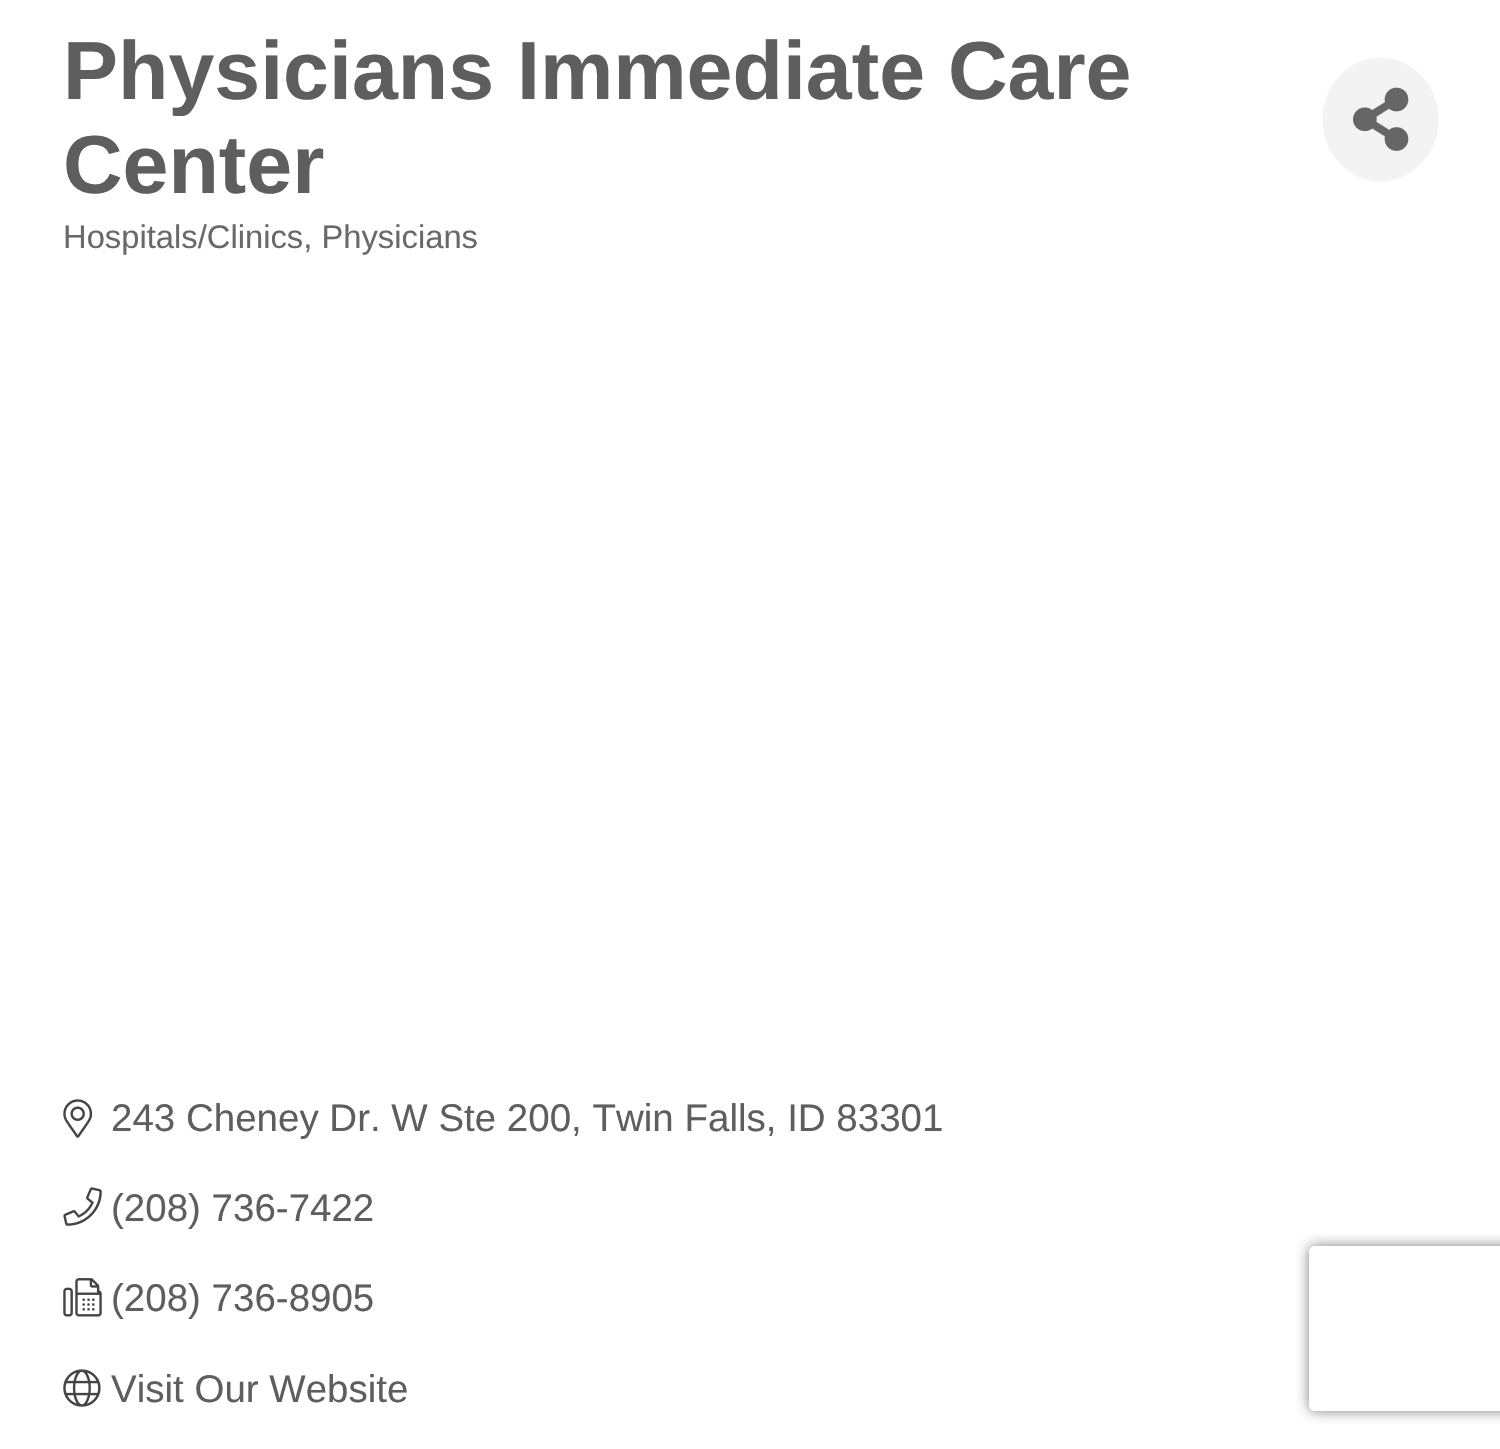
#include "include/core/SkBlurTypes.h"
#include "include/core/SkCanvas.h"
#include "include/core/SkData.h"
#include "include/core/SkFont.h"
#include "include/core/SkFontMgr.h"
#include "include/core/SkImage.h"
#include "include/core/SkMaskFilter.h"
#include "include/core/SkPaint.h"
#include "include/core/SkPathBuilder.h"
#include "include/core/SkTextBlob.h"
#include "include/effects/SkDashPathEffect.h"
#include "include/effects/SkGradientShader.h"
#include "include/utils/SkParsePath.h"

extern sk_sp<SkFontMgr> fontMgr;

void draw(SkCanvas* canvas) {
    SkPaint p;
    p.setAntiAlias(true);
    auto font = [&](const char* family, int weight, float size, bool italic = false) {
        SkFontStyle style(weight, SkFontStyle::kNormal_Width,
            italic ? SkFontStyle::kItalic_Slant : SkFontStyle::kUpright_Slant);
        SkFont result(fontMgr->matchFamilyStyle(family, style), size);
        result.setSubpixel(true);
        return result;
    };
    auto drawPhoto = [&](const char* path, float l, float t, float r, float b) {
        auto image = SkImages::DeferredFromEncodedData(SkData::MakeFromFileName(path));
        canvas->drawImageRect(image, SkRect::MakeLTRB(l, t, r, b), SkSamplingOptions());
    };
    canvas->clear(0xFFFFFFFF);
    auto font1 = font("Liberation Sans", 700, 82.5f);
    p.setColor(0xFF5E5E5E);
    canvas->drawString("Physicians Immediate Care", 63, 99, font1, p);
    canvas->drawString("Center", 63, 193, font1, p);
    p.setColor(0xFFF3F3F3);
    canvas->drawOval(SkRect::MakeLTRB(1322.5f, 57.5f, 1438.5f, 181.5f), p);
    drawPhoto("media/1.png", 1353, 87, 1409, 151);
    auto font2 = font("Liberation Sans", 400, 32.75f);
    p.setColor(0xFF696969);
    canvas->drawString("Hospitals/Clinics, Physicians", 63, 248, font2, p);
    drawPhoto("media/2.png", 63, 1099, 93, 1138);
    auto font3 = font("Liberation Sans", 400, 38.5f);
    p.setColor(0xFF5E5E5E);
    canvas->drawString("243 Cheney Dr. W Ste 200, Twin Falls, ID 83301", 111, 1131, font3, p);
    drawPhoto("media/3.png", 63, 1187, 102, 1226);
    canvas->drawString("(208) 736-7422", 111, 1221, font3, p);
    drawPhoto("media/4.png", 63, 1278, 102, 1317);
    canvas->drawString("(208) 736-8905", 111, 1311, font3, p);
    drawPhoto("media/5.png", 63, 1369, 101, 1407);
    canvas->drawString("Visit Our Website", 111, 1402, font3, p);
    canvas->save();
    canvas->clipPath(SkPathBuilder(SkPathFillType::kEvenOdd).moveTo(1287, 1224).lineTo(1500, 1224).lineTo(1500, 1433).lineTo(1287, 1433).close().moveTo(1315, 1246).lineTo(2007, 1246).cubicTo(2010.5f, 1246, 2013, 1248.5f, 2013, 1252).lineTo(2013, 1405).cubicTo(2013, 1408.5f, 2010.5f, 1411, 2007, 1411).lineTo(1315, 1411).cubicTo(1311.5f, 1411, 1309, 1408.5f, 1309, 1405).lineTo(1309, 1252).cubicTo(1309, 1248.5f, 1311.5f, 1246, 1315, 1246).close().detach(), true);
    p.setColor(0xFF808080);
    p.setMaskFilter(SkMaskFilter::MakeBlur(kNormal_SkBlurStyle, 7));
    canvas->drawRoundRect(SkRect::MakeLTRB(1309, 1246, 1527, 1411), 6, 6, p);
    p.setMaskFilter(nullptr);
    canvas->restore();
}
